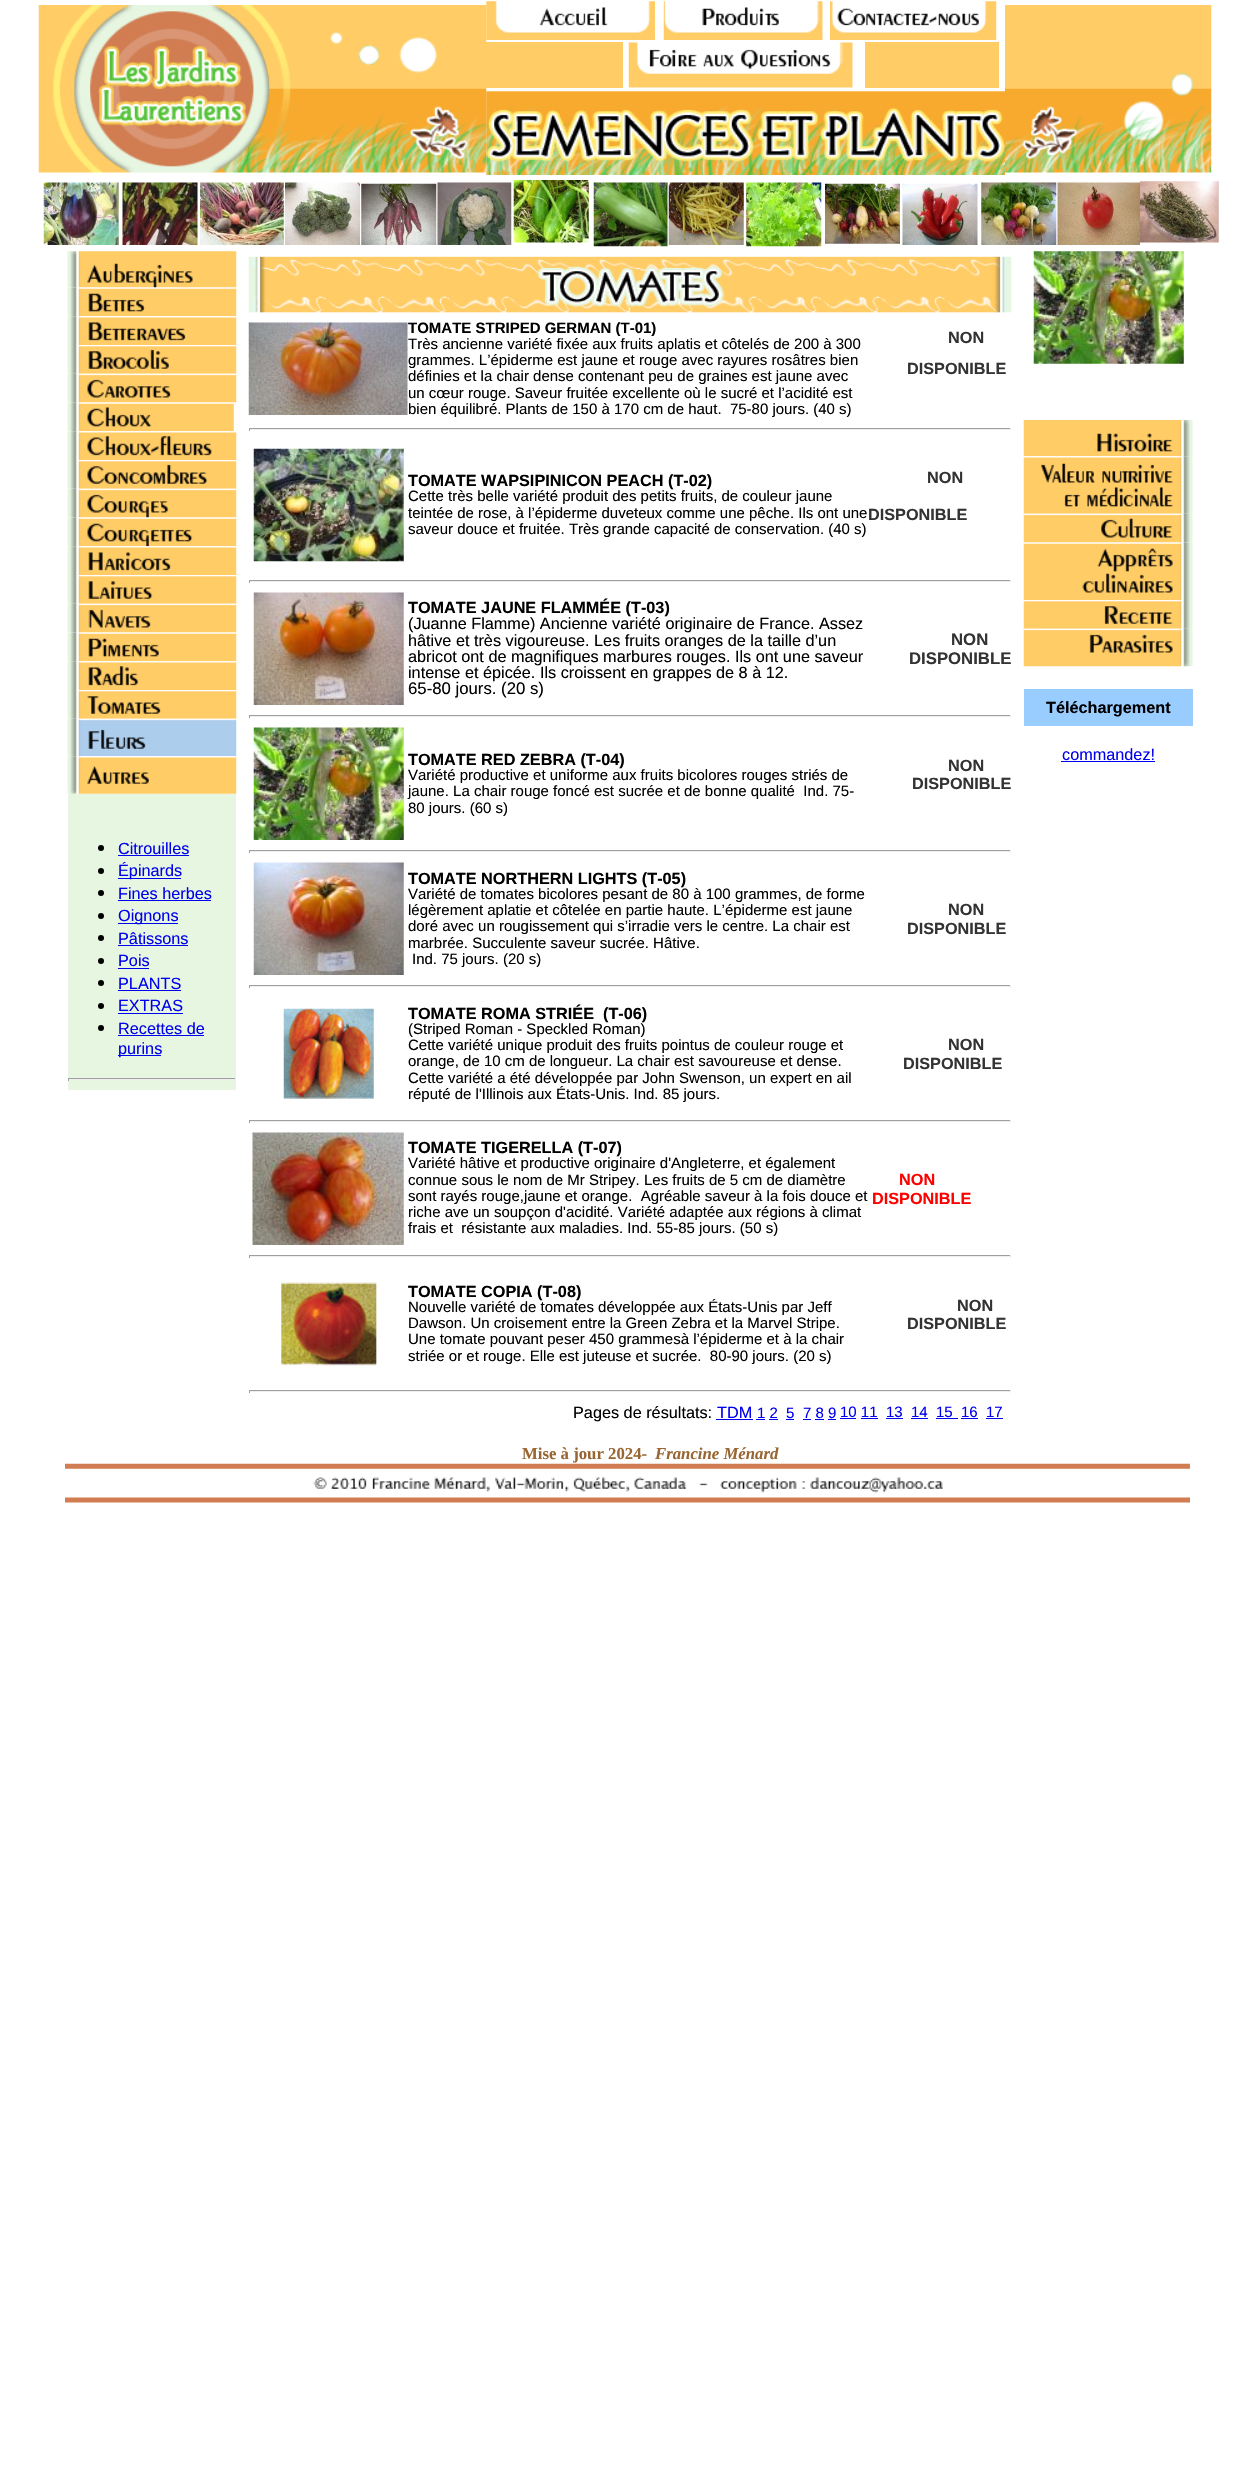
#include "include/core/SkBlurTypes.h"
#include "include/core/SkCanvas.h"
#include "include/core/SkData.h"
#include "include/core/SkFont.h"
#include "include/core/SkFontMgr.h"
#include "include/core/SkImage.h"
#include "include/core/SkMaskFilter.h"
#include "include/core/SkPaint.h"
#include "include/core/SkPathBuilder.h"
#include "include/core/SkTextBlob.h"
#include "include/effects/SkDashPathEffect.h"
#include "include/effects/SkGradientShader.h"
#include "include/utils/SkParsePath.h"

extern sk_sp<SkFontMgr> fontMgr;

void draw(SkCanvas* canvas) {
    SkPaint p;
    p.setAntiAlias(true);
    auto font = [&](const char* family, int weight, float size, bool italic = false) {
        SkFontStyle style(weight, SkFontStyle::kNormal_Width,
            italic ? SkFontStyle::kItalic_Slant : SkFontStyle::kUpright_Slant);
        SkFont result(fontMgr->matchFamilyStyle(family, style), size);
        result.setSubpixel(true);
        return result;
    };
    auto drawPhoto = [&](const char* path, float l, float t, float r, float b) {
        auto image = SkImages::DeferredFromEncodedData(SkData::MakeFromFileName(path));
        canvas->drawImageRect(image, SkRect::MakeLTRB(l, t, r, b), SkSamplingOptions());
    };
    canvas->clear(0xFFFFFFFF);
    drawPhoto("media/1.png", 38, 5, 487, 173);
    drawPhoto("media/2.png", 486, 1, 655, 40);
    drawPhoto("media/3.png", 663, 1, 823, 40);
    drawPhoto("media/4.png", 830, 1, 997, 40);
    drawPhoto("media/5.png", 1005, 5, 1212, 173);
    p.setColor(0xFFFFCC66);
    canvas->drawRect(SkRect::MakeLTRB(486, 42, 623, 88), p);
    drawPhoto("media/6.png", 628, 42, 853, 88);
    canvas->drawRect(SkRect::MakeLTRB(865, 42, 999, 88), p);
    drawPhoto("media/7.png", 486, 91, 1005, 175);
    drawPhoto("media/8.png", 43, 182, 119, 245);
    drawPhoto("media/9.png", 122, 182, 198, 245);
    drawPhoto("media/10.png", 200, 182, 284, 245);
    drawPhoto("media/11.png", 285, 182, 360, 245);
    drawPhoto("media/12.png", 361, 183, 437, 245);
    drawPhoto("media/13.png", 437, 182, 512, 245);
    drawPhoto("media/14.png", 513, 180, 589, 243);
    drawPhoto("media/15.png", 593, 182, 668, 247);
    drawPhoto("media/16.png", 668, 182, 744, 245);
    drawPhoto("media/17.png", 746, 182, 822, 247);
    drawPhoto("media/18.png", 825, 183, 900, 244);
    drawPhoto("media/19.png", 902, 183, 978, 245);
    drawPhoto("media/20.png", 981, 182, 1057, 245);
    drawPhoto("media/21.png", 1057, 182, 1140, 245);
    drawPhoto("media/22.png", 1140, 181, 1219, 243);
    drawPhoto("media/23.png", 248, 256, 1012, 313);
    drawPhoto("media/24.png", 248, 322, 408, 415);
    auto font1 = font("Liberation Sans", 700, 15);
    p.setColor(0xFF000000);
    canvas->drawString("TOMATE STRIPED GERMAN (T-01)", 408, 333, font1, p);
    auto font2 = font("Liberation Sans", 400, 15);
    {
        const struct { const char* s; float x, y; } items[] = {
            {"Très ancienne variété fixée aux fruits aplatis et côtelés de 200 à 300", 408, 349},
            {"grammes. L’épiderme est jaune et rouge avec rayures rosâtres bien", 408, 365},
            {"définies et la chair dense contenant peu de graines est jaune avec", 408, 381},
            {"un cœur rouge. Saveur fruitée excellente où le sucré et l’acidité est", 408, 398},
            {"bien équilibré. Plants de 150 à 170 cm de haut.  75-80 jours. (40 s)", 408, 414},
        };
        for (auto [s, x, y] : items) {
            canvas->drawString(s, x, y, font2, p);
        }
    }
    auto font3 = font("Liberation Sans", 700, 16.25f);
    p.setColor(0xFF333333);
    canvas->drawString("NON", 948, 343, font3, p);
    canvas->drawString("DISPONIBLE", 907, 374, font3, p);
    {
        const struct { float l, t, r, b; SkColor color; } items[] = {
            {249, 428, 1011, 429, 0xFF9F9F9F},
            {1010, 428, 1011, 431, 0xFFEEEEEE},
            {249, 429, 1011, 430, 0xFFEEEEEE},
            {249, 428, 250, 431, 0xFF9F9F9F},
        };
        for (auto [l, t, r, b, color] : items) {
            p.setColor(color);
            canvas->drawRect(SkRect::MakeLTRB(l, t, r, b), p);
        }
    }
    drawPhoto("media/25.png", 253, 448, 404, 562);
    p.setColor(0xFF000000);
    canvas->drawString("TOMATE WAPSIPINICON PEACH (T-02)", 408, 486, font3, p);
    {
        const struct { const char* s; float x, y; } items[] = {
            {"Cette très belle variété produit des petits fruits, de couleur jaune", 408, 501},
            {"teintée de rose, à l’épiderme duveteux comme une pêche. Ils ont une", 408, 518},
            {"saveur douce et fruitée. Très grande capacité de conservation. (40 s)", 408, 534},
        };
        for (auto [s, x, y] : items) {
            canvas->drawString(s, x, y, font2, p);
        }
    }
    p.setColor(0xFF333333);
    canvas->drawString("NON", 927, 483, font3, p);
    canvas->drawString("DISPONIBLE", 868, 520, font3, p);
    {
        const struct { float l, t, r, b; SkColor color; } items[] = {
            {249, 580, 1011, 581, 0xFF9F9F9F},
            {1010, 580, 1011, 583, 0xFFEEEEEE},
            {249, 581, 1011, 582, 0xFFEEEEEE},
            {249, 580, 250, 583, 0xFF9F9F9F},
        };
        for (auto [l, t, r, b, color] : items) {
            p.setColor(color);
            canvas->drawRect(SkRect::MakeLTRB(l, t, r, b), p);
        }
    }
    drawPhoto("media/26.png", 253, 592, 404, 705);
    p.setColor(0xFF000000);
    canvas->drawString("TOMATE JAUNE FLAMMÉE (T-03)", 408, 613, font3, p);
    auto font4 = font("Liberation Sans", 400, 16.25f);
    {
        const struct { const char* s; float x, y; } items[] = {
            {"(Juanne Flamme) Ancienne variété originaire de France. Assez", 408, 629},
            {"hâtive et très vigoureuse. Les fruits oranges de la taille d’un", 408, 646},
            {"abricot ont de magnifiques marbures rouges. Ils ont une saveur", 408, 662},
            {"intense et épicée. Ils croissent en grappes de 8 à 12.", 408, 678},
        };
        for (auto [s, x, y] : items) {
            canvas->drawString(s, x, y, font4, p);
        }
    }
    auto font5 = font("Liberation Sans", 400, 16.75f);
    canvas->drawString("65-80 jours. (20 s)", 408, 694, font5, p);
    auto font6 = font("Liberation Sans", 700, 16.75f);
    p.setColor(0xFF333333);
    canvas->drawString("NON", 951, 645, font6, p);
    canvas->drawString("DISPONIBLE", 909, 664, font6, p);
    {
        const struct { float l, t, r, b; SkColor color; } items[] = {
            {249, 715, 1011, 716, 0xFF9F9F9F},
            {1010, 715, 1011, 718, 0xFFEEEEEE},
            {249, 716, 1011, 717, 0xFFEEEEEE},
            {249, 715, 250, 718, 0xFF9F9F9F},
        };
        for (auto [l, t, r, b, color] : items) {
            p.setColor(color);
            canvas->drawRect(SkRect::MakeLTRB(l, t, r, b), p);
        }
    }
    drawPhoto("media/27.png", 253, 727, 404, 840);
    p.setColor(0xFF000000);
    canvas->drawString("TOMATE RED ZEBRA (T-04)", 408, 765, font3, p);
    {
        const struct { const char* s; float x, y; } items[] = {
            {"Variété productive et uniforme aux fruits bicolores rouges striés de", 408, 780},
            {"jaune. La chair rouge foncé est sucrée et de bonne qualité  Ind. 75-", 408, 796},
            {"80 jours. (60 s)", 408, 813},
        };
        for (auto [s, x, y] : items) {
            canvas->drawString(s, x, y, font2, p);
        }
    }
    p.setColor(0xFF333333);
    canvas->drawString("NON", 948, 771, font3, p);
    canvas->drawString("DISPONIBLE", 912, 789, font3, p);
    {
        const struct { float l, t, r, b; SkColor color; } items[] = {
            {249, 850, 1011, 851, 0xFF9F9F9F},
            {1010, 850, 1011, 853, 0xFFEEEEEE},
            {249, 851, 1011, 852, 0xFFEEEEEE},
            {249, 850, 250, 853, 0xFF9F9F9F},
        };
        for (auto [l, t, r, b, color] : items) {
            p.setColor(color);
            canvas->drawRect(SkRect::MakeLTRB(l, t, r, b), p);
        }
    }
    drawPhoto("media/28.png", 253, 862, 404, 975);
    p.setColor(0xFF000000);
    canvas->drawString("TOMATE NORTHERN LIGHTS (T-05)", 408, 884, font3, p);
    {
        const struct { const char* s; float x, y; } items[] = {
            {"Variété de tomates bicolores pesant de 80 à 100 grammes, de forme", 408, 899},
            {"légèrement aplatie et côtelée en partie haute. L’épiderme est jaune", 408, 915},
            {"doré avec un rougissement qui s’irradie vers le centre. La chair est", 408, 931},
            {"marbrée. Succulente saveur sucrée. Hâtive.", 408, 948},
            {"Ind. 75 jours. (20 s)", 412, 964},
        };
        for (auto [s, x, y] : items) {
            canvas->drawString(s, x, y, font2, p);
        }
    }
    p.setColor(0xFF333333);
    canvas->drawString("NON", 948, 915, font3, p);
    canvas->drawString("DISPONIBLE", 907, 934, font3, p);
    {
        const struct { float l, t, r, b; SkColor color; } items[] = {
            {249, 985, 1011, 986, 0xFF9F9F9F},
            {1010, 985, 1011, 988, 0xFFEEEEEE},
            {249, 986, 1011, 987, 0xFFEEEEEE},
            {249, 985, 250, 988, 0xFF9F9F9F},
        };
        for (auto [l, t, r, b, color] : items) {
            p.setColor(color);
            canvas->drawRect(SkRect::MakeLTRB(l, t, r, b), p);
        }
    }
    drawPhoto("media/29.png", 283, 1008, 374, 1099);
    p.setColor(0xFF000000);
    canvas->drawString("TOMATE ROMA STRIÉE", 408, 1019, font3, p);
    canvas->drawString("(T-06)", 603, 1019, font3, p);
    {
        const struct { const char* s; float x, y; } items[] = {
            {"(Striped Roman - Speckled Roman)", 408, 1034},
            {"Cette variété unique produit des fruits pointus de couleur rouge et", 408, 1050},
            {"orange, de 10 cm de longueur. La chair est savoureuse et dense.", 408, 1066},
            {"Cette variété a été développée par John Swenson, un expert en ail", 408, 1083},
            {"réputé de l'Illinois aux États-Unis. Ind. 85 jours.", 408, 1099},
        };
        for (auto [s, x, y] : items) {
            canvas->drawString(s, x, y, font2, p);
        }
    }
    p.setColor(0xFF333333);
    canvas->drawString("NON", 948, 1050, font3, p);
    canvas->drawString("DISPONIBLE", 903, 1069, font3, p);
    {
        const struct { float l, t, r, b; SkColor color; } items[] = {
            {249, 1120, 1011, 1121, 0xFF9F9F9F},
            {1010, 1120, 1011, 1123, 0xFFEEEEEE},
            {249, 1121, 1011, 1122, 0xFFEEEEEE},
            {249, 1120, 250, 1123, 0xFF9F9F9F},
        };
        for (auto [l, t, r, b, color] : items) {
            p.setColor(color);
            canvas->drawRect(SkRect::MakeLTRB(l, t, r, b), p);
        }
    }
    drawPhoto("media/30.png", 252, 1132, 404, 1245);
    p.setColor(0xFF000000);
    canvas->drawString("TOMATE TIGERELLA (T-07)", 408, 1153, font3, p);
    {
        const struct { const char* s; float x, y; } items[] = {
            {"Variété hâtive et productive originaire d'Angleterre, et également", 408, 1168},
            {"connue sous le nom de Mr Stripey. Les fruits de 5 cm de diamètre", 408, 1185},
            {"sont rayés rouge,jaune et orange.  Agréable saveur à la fois douce et", 408, 1201},
            {"riche ave un soupçon d'acidité. Variété adaptée aux régions à climat", 408, 1217},
            {"frais et  résistante aux maladies. Ind. 55-85 jours. (50 s)", 408, 1233},
        };
        for (auto [s, x, y] : items) {
            canvas->drawString(s, x, y, font2, p);
        }
    }
    p.setColor(0xFFFF0000);
    canvas->drawString("NON", 899, 1185, font3, p);
    canvas->drawString("DISPONIBLE", 872, 1204, font3, p);
    {
        const struct { float l, t, r, b; SkColor color; } items[] = {
            {249, 1255, 1011, 1256, 0xFF9F9F9F},
            {1010, 1255, 1011, 1258, 0xFFEEEEEE},
            {249, 1256, 1011, 1257, 0xFFEEEEEE},
            {249, 1255, 250, 1258, 0xFF9F9F9F},
        };
        for (auto [l, t, r, b, color] : items) {
            p.setColor(color);
            canvas->drawRect(SkRect::MakeLTRB(l, t, r, b), p);
        }
    }
    drawPhoto("media/31.png", 281, 1282, 377, 1366);
    p.setColor(0xFF000000);
    canvas->drawString("TOMATE COPIA (T-08)", 408, 1297, font3, p);
    {
        const struct { const char* s; float x, y; } items[] = {
            {"Nouvelle variété de tomates développée aux États-Unis par Jeff", 408, 1312},
            {"Dawson. Un croisement entre la Green Zebra et la Marvel Stripe.", 408, 1328},
            {"Une tomate pouvant peser 450 grammesà l’épiderme et à la chair", 408, 1344},
            {"striée or et rouge. Elle est juteuse et sucrée.  80-90 jours. (20 s)", 408, 1361},
        };
        for (auto [s, x, y] : items) {
            canvas->drawString(s, x, y, font2, p);
        }
    }
    p.setColor(0xFF333333);
    canvas->drawString("NON", 957, 1311, font3, p);
    canvas->drawString("DISPONIBLE", 907, 1329, font3, p);
    {
        const struct { float l, t, r, b; SkColor color; } items[] = {
            {249, 1390, 1011, 1391, 0xFF9F9F9F},
            {1010, 1390, 1011, 1393, 0xFFEEEEEE},
            {249, 1391, 1011, 1392, 0xFFEEEEEE},
            {249, 1390, 250, 1393, 0xFF9F9F9F},
        };
        for (auto [l, t, r, b, color] : items) {
            p.setColor(color);
            canvas->drawRect(SkRect::MakeLTRB(l, t, r, b), p);
        }
    }
    p.setColor(0xFF000000);
    canvas->drawString("Pages de résultats:", 573, 1418, font4, p);
    p.setColor(0xFF0000EE);
    canvas->drawString("TDM", 717, 1418, font4, p);
    canvas->drawRect(SkRect::MakeLTRB(716, 1419, 753, 1420), p);
    canvas->drawString("1 2", 757, 1418, font2, p);
    canvas->drawRect(SkRect::MakeLTRB(756, 1419, 765, 1420), p);
    canvas->drawRect(SkRect::MakeLTRB(769, 1419, 778, 1420), p);
    canvas->drawString("5", 786, 1418, font2, p);
    canvas->drawRect(SkRect::MakeLTRB(786, 1419, 794, 1420), p);
    canvas->drawString("7 8 9", 803, 1418, font2, p);
    {
        const struct { float l, t, r, b; SkColor color; } items[] = {
            {803, 1419, 811, 1420, 0xFF0000EE},
            {815, 1419, 824, 1420, 0xFF0000EE},
            {828, 1419, 836, 1420, 0xFF0000EE},
        };
        for (auto [l, t, r, b, color] : items) {
            p.setColor(color);
            canvas->drawRect(SkRect::MakeLTRB(l, t, r, b), p);
        }
    }
    canvas->drawString("10 11", 840, 1417, font2, p);
    canvas->drawRect(SkRect::MakeLTRB(840, 1418, 856, 1419), p);
    canvas->drawRect(SkRect::MakeLTRB(861, 1418, 878, 1419), p);
    canvas->drawString("13", 886, 1417, font2, p);
    canvas->drawRect(SkRect::MakeLTRB(886, 1418, 903, 1419), p);
    canvas->drawString("14", 911, 1417, font2, p);
    canvas->drawRect(SkRect::MakeLTRB(911, 1418, 928, 1419), p);
    canvas->drawString("15", 936, 1417, font2, p);
    canvas->drawRect(SkRect::MakeLTRB(936, 1418, 958, 1419), p);
    canvas->drawString("16", 961, 1417, font2, p);
    canvas->drawRect(SkRect::MakeLTRB(961, 1418, 978, 1419), p);
    canvas->drawString("17", 986, 1417, font2, p);
    canvas->drawRect(SkRect::MakeLTRB(986, 1418, 1003, 1419), p);
    drawPhoto("media/32.png", 1033, 251, 1184, 364);
    drawPhoto("media/33.png", 1023, 420, 1193, 457);
    drawPhoto("media/34.png", 1023, 456, 1193, 514);
    drawPhoto("media/35.png", 1023, 513, 1193, 543);
    drawPhoto("media/36.png", 1023, 542, 1193, 600);
    drawPhoto("media/37.png", 1023, 600, 1193, 629);
    drawPhoto("media/38.png", 1023, 628, 1193, 667);
    p.setColor(0xFF99CCFF);
    canvas->drawRect(SkRect::MakeLTRB(1024, 689, 1193, 726), p);
    p.setColor(0xFF000000);
    canvas->drawString("Téléchargement", 1046, 713, font3, p);
    p.setColor(0xFF0000EE);
    canvas->drawString("commandez!", 1062, 760, font4, p);
    canvas->drawRect(SkRect::MakeLTRB(1061, 761, 1155, 762), p);
    drawPhoto("media/39.png", 67, 251, 237, 288);
    drawPhoto("media/40.png", 67, 287, 237, 317);
    drawPhoto("media/41.png", 67, 316, 237, 345);
    drawPhoto("media/42.png", 67, 345, 237, 374);
    drawPhoto("media/43.png", 67, 373, 237, 403);
    drawPhoto("media/44.png", 67, 402, 236, 432);
    drawPhoto("media/45.png", 67, 431, 237, 460);
    drawPhoto("media/46.png", 67, 460, 237, 489);
    drawPhoto("media/47.png", 67, 488, 237, 518);
    drawPhoto("media/48.png", 67, 517, 237, 547);
    drawPhoto("media/49.png", 67, 546, 237, 575);
    drawPhoto("media/50.png", 67, 575, 237, 604);
    drawPhoto("media/51.png", 67, 603, 237, 633);
    drawPhoto("media/52.png", 67, 632, 237, 662);
    drawPhoto("media/53.png", 67, 661, 237, 690);
    drawPhoto("media/54.png", 67, 690, 237, 719);
    drawPhoto("media/55.png", 67, 718, 237, 757);
    drawPhoto("media/56.png", 67, 756, 237, 794);
    p.setColor(0xFFE6F6E1);
    canvas->drawRect(SkRect::MakeLTRB(68, 794, 236, 1090), p);
    p.setColor(0xFF000000);
    canvas->drawCircle(101, 848, 3, p);
    p.setColor(0xFF0000EE);
    canvas->drawString("Citrouilles", 118, 854, font4, p);
    canvas->drawRect(SkRect::MakeLTRB(118, 855, 189, 856), p);
    p.setColor(0xFF000000);
    canvas->drawCircle(101, 871, 3, p);
    p.setColor(0xFF0000EE);
    canvas->drawRect(SkRect::MakeLTRB(118, 878, 181, 879), p);
    canvas->drawString("Épinards", 118, 876, font4, p);
    p.setColor(0xFF000000);
    canvas->drawCircle(101, 893, 3, p);
    p.setColor(0xFF0000EE);
    canvas->drawString("Fines herbes", 118, 899, font4, p);
    canvas->drawRect(SkRect::MakeLTRB(118, 900, 211, 901), p);
    p.setColor(0xFF000000);
    canvas->drawCircle(101, 916, 3, p);
    p.setColor(0xFF0000EE);
    canvas->drawRect(SkRect::MakeLTRB(118, 923, 178, 924), p);
    canvas->drawString("Oignons", 118, 921, font4, p);
    p.setColor(0xFF000000);
    canvas->drawCircle(101, 938, 3, p);
    p.setColor(0xFF0000EE);
    canvas->drawString("Pâtissons", 118, 944, font4, p);
    canvas->drawRect(SkRect::MakeLTRB(118, 945, 188, 946), p);
    p.setColor(0xFF000000);
    canvas->drawCircle(101, 961, 3, p);
    p.setColor(0xFF0000EE);
    canvas->drawString("Pois", 118, 966, font4, p);
    canvas->drawRect(SkRect::MakeLTRB(118, 968, 149, 969), p);
    p.setColor(0xFF000000);
    canvas->drawCircle(101, 983, 3, p);
    p.setColor(0xFF0000EE);
    canvas->drawString("PLANTS", 118, 989, font4, p);
    canvas->drawRect(SkRect::MakeLTRB(118, 990, 181, 991), p);
    p.setColor(0xFF000000);
    canvas->drawCircle(101, 1006, 3, p);
    p.setColor(0xFF0000EE);
    canvas->drawString("EXTRAS", 118, 1011, font4, p);
    canvas->drawRect(SkRect::MakeLTRB(118, 1013, 183, 1014), p);
    p.setColor(0xFF000000);
    canvas->drawCircle(101, 1028, 3, p);
    p.setColor(0xFF0000EE);
    canvas->drawString("Recettes de", 118, 1034, font4, p);
    canvas->drawRect(SkRect::MakeLTRB(118, 1035, 204, 1036), p);
    canvas->drawRect(SkRect::MakeLTRB(118, 1055, 161, 1056), p);
    canvas->drawString("purins", 118, 1054, font4, p);
    {
        const struct { float l, t, r, b; SkColor color; } items[] = {
            {68, 1078, 236, 1079, 0xFF9F9F9F},
            {235, 1078, 236, 1081, 0xFFEEEEEE},
            {68, 1079, 236, 1080, 0xFFEEEEEE},
            {68, 1078, 69, 1081, 0xFF9F9F9F},
        };
        for (auto [l, t, r, b, color] : items) {
            p.setColor(color);
            canvas->drawRect(SkRect::MakeLTRB(l, t, r, b), p);
        }
    }
    auto font7 = font("Liberation Serif", 700, 16.75f);
    p.setColor(0xFF996633);
    canvas->drawString("Mise à jour 2024-", 522, 1459, font7, p);
    auto font8 = font("Liberation Serif", 700, 16.75f, true);
    canvas->drawString("Francine Ménard", 655, 1459, font8, p);
    drawPhoto("media/57.png", 65, 1463, 1190, 1503);
}
